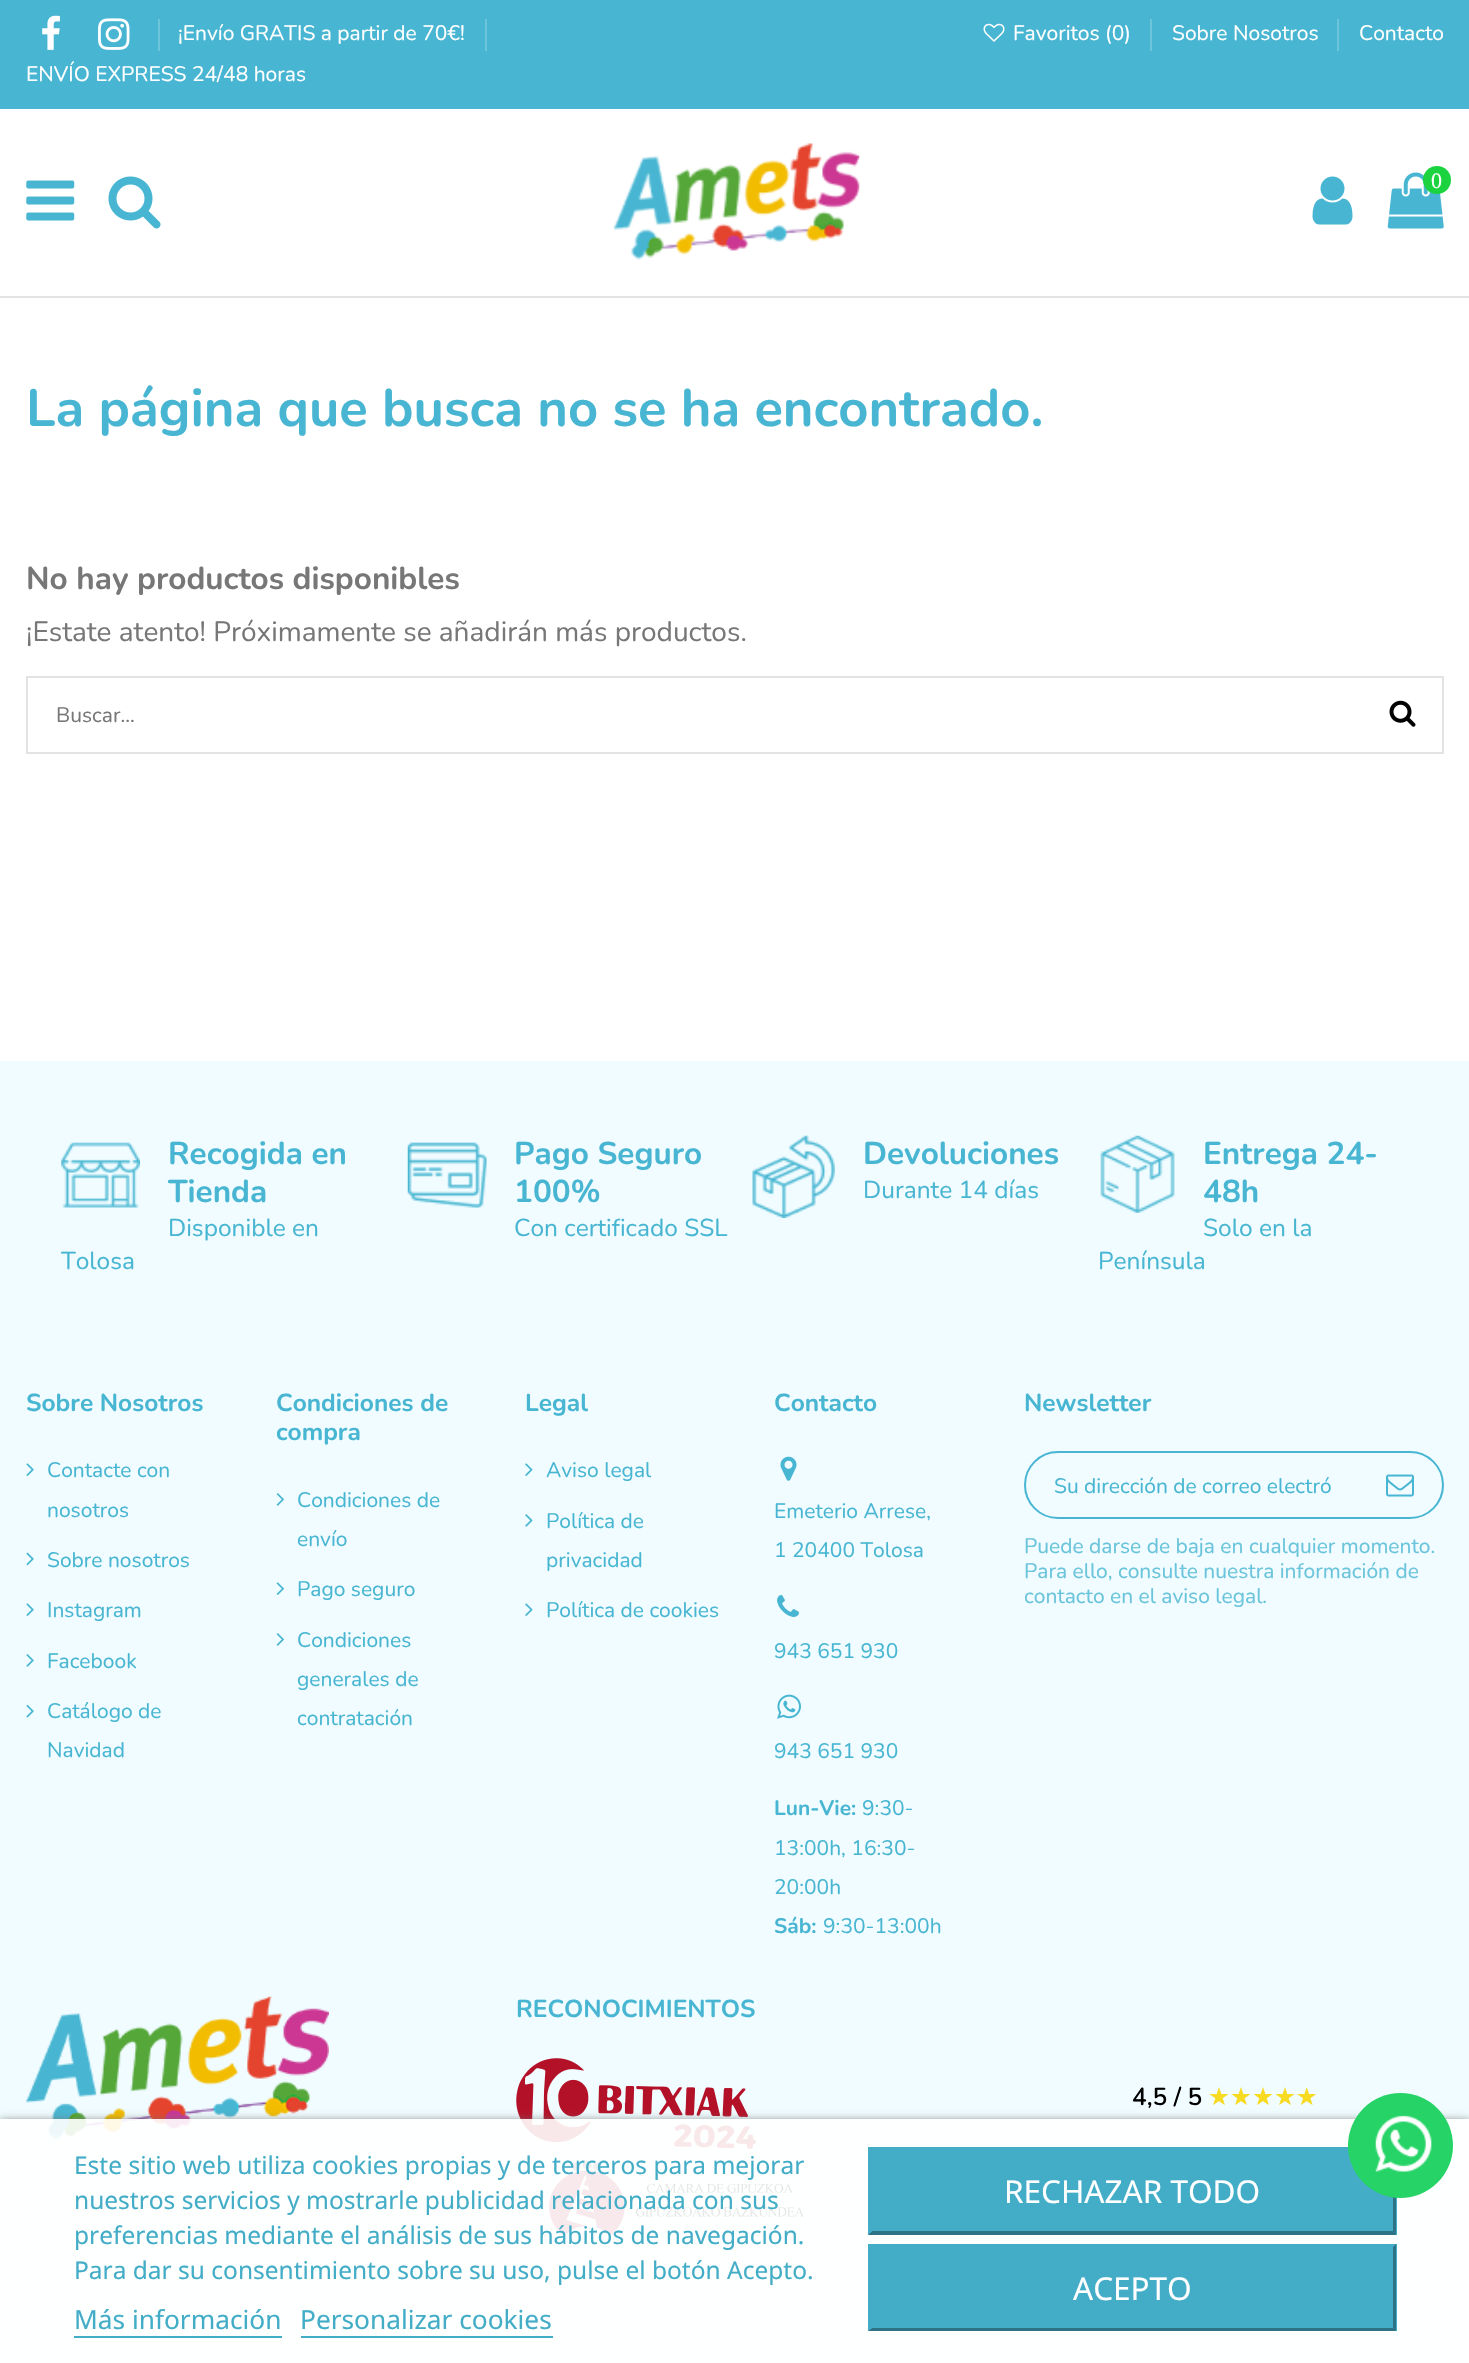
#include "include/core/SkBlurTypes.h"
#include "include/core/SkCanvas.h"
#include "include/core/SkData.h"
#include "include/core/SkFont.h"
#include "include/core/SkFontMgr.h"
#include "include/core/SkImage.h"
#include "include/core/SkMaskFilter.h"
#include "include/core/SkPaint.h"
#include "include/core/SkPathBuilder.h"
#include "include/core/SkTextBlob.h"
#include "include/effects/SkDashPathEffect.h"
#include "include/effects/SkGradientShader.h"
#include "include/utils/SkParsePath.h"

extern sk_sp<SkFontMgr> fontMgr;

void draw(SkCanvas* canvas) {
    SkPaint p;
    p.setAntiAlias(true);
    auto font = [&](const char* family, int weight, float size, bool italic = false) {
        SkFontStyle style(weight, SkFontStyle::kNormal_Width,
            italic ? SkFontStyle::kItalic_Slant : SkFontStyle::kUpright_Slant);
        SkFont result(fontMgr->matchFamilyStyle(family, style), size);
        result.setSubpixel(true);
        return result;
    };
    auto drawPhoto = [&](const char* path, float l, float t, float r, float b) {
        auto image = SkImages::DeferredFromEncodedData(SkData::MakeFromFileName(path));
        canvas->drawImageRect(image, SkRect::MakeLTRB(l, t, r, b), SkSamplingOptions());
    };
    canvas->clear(0xFFFFFFFF);
    p.setColor(0xFF48B6D2);
    canvas->drawRect(SkRect::MakeLTRB(0, 0, 1469, 109), p);
    drawPhoto("media/1.png", 42, 15, 60, 50);
    drawPhoto("media/2.png", 98, 18, 130, 50);
    p.setColor(0xFF6DC5DB);
    canvas->drawRect(SkRect::MakeLTRB(158, 19, 160, 51), p);
    auto font1 = font("Nunito", 400, 21);
    p.setColor(0xFFFFFFFF);
    canvas->drawString("¡Envío GRATIS a partir de 70€!", 178, 40, font1, p);
    p.setColor(0xFF6DC5DB);
    canvas->drawRect(SkRect::MakeLTRB(485, 19, 487, 51), p);
    p.setColor(0xFFFFFFFF);
    canvas->drawString("ENVÍO EXPRESS 24/48 horas", 26, 81, font1, p);
    drawPhoto("media/3.png", 983, 23, 1005, 42);
    canvas->drawString("Favoritos (0)", 1013, 40, font1, p);
    p.setColor(0xFF6DC5DB);
    canvas->drawRect(SkRect::MakeLTRB(1150, 19, 1152, 51), p);
    p.setColor(0xFFFFFFFF);
    canvas->drawString("Sobre Nosotros", 1172, 40, font1, p);
    p.setColor(0xFF6DC5DB);
    canvas->drawRect(SkRect::MakeLTRB(1337, 19, 1339, 51), p);
    p.setColor(0xFFFFFFFF);
    canvas->drawString("Contacto", 1359, 40, font1, p);
    p.setColor(0xFFE3E3E3);
    canvas->drawRect(SkRect::MakeLTRB(0, 296, 1469, 298), p);
    drawPhoto("media/4.png", 26, 180, 75, 221);
    drawPhoto("media/5.png", 108, 176, 161, 229);
    drawPhoto("media/6.png", 614, 143, 860, 260);
    drawPhoto("media/7.png", 1312, 176, 1353, 225);
    drawPhoto("media/8.png", 1387, 172, 1444, 229);
    p.setColor(0xFF1BD33F);
    canvas->drawCircle(1437, 180, 14, p);
    auto font2 = font("Liberation Serif", 400, 22);
    p.setColor(0xFFFFFFFF);
    canvas->drawString("0", 1431, 188, font2, p);
    auto font3 = font("Nunito", 700, 52.5f);
    p.setColor(0xFF48B6D2);
    canvas->drawString("La página que busca no se ha encontrado.", 26, 426, font3, p);
    auto font4 = font("Nunito", 700, 31.5f);
    p.setColor(0xFF777777);
    canvas->drawString("No hay productos disponibles", 26, 589, font4, p);
    auto font5 = font("Nunito", 400, 28);
    canvas->drawString("¡Estate atento! Próximamente se añadirán más productos.", 26, 641, font5, p);
    p.setStyle(SkPaint::kStroke_Style);
    p.setStrokeWidth(2);
    p.setColor(0xFFE3E3E3);
    canvas->drawRect(SkRect::MakeLTRB(27, 677, 1443, 753), p);
    p.setStyle(SkPaint::kFill_Style);
    p.setColor(0xFF777777);
    canvas->drawString("Buscar...", 56, 722, font1, p);
    drawPhoto("media/9.png", 1389, 700, 1416, 727);
    p.setColor(0xFFF0FCFF);
    canvas->drawRect(SkRect::MakeLTRB(0, 1061, 1469, 2363), p);
    p.setColor(0xFF48B6D2);
    canvas->drawString("Recogida en", 168, 1164, font4, p);
    canvas->drawString("Tienda", 168, 1202, font4, p);
    auto font6 = font("Nunito", 400, 24.5f);
    canvas->drawString("Disponible en", 168, 1236, font6, p);
    canvas->drawString("Tolosa", 61, 1269, font6, p);
    drawPhoto("media/10.png", 61, 1142, 140, 1208);
    drawPhoto("media/11.png", 407, 1142, 487, 1208);
    canvas->drawString("Pago Seguro", 514, 1164, font4, p);
    canvas->drawString("100%", 514, 1202, font4, p);
    canvas->drawString("Con certificado SSL", 514, 1236, font6, p);
    drawPhoto("media/12.png", 752, 1135, 835, 1218);
    canvas->drawString("Devoluciones", 863, 1164, font4, p);
    canvas->drawString("Durante 14 días", 863, 1198, font6, p);
    drawPhoto("media/13.png", 1100, 1135, 1175, 1213);
    canvas->drawString("Entrega 24-", 1203, 1164, font4, p);
    canvas->drawString("48h", 1203, 1202, font4, p);
    canvas->drawString("Solo en la", 1203, 1236, font6, p);
    canvas->drawString("Península", 1098, 1269, font6, p);
    auto font7 = font("Nunito", 700, 24.5f);
    canvas->drawString("Sobre Nosotros", 26, 1411, font7, p);
    drawPhoto("media/14.png", 26, 1463, 34, 1476);
    canvas->drawString("Contacte con", 47, 1477, font1, p);
    canvas->drawString("nosotros", 47, 1517, font1, p);
    drawPhoto("media/15.png", 26, 1552, 34, 1566);
    canvas->drawString("Sobre nosotros", 47, 1567, font1, p);
    drawPhoto("media/14.png", 26, 1603, 34, 1616);
    canvas->drawString("Instagram", 47, 1617, font1, p);
    drawPhoto("media/16.png", 26, 1654, 34, 1667);
    canvas->drawString("Facebook", 47, 1668, font1, p);
    drawPhoto("media/17.png", 26, 1704, 34, 1718);
    canvas->drawString("Catálogo de", 47, 1718, font1, p);
    canvas->drawString("Navidad", 47, 1757, font1, p);
    canvas->drawString("Condiciones de", 276, 1411, font7, p);
    canvas->drawString("compra", 276, 1440, font7, p);
    drawPhoto("media/18.png", 276, 1493, 284, 1506);
    canvas->drawString("Condiciones de", 297, 1507, font1, p);
    canvas->drawString("envío", 297, 1546, font1, p);
    drawPhoto("media/19.png", 276, 1582, 284, 1595);
    canvas->drawString("Pago seguro", 297, 1596, font1, p);
    drawPhoto("media/18.png", 276, 1633, 284, 1646);
    {
        const struct { const char* s; float x, y; } items[] = {
            {"Condiciones", 297, 1647},
            {"generales de", 297, 1686},
            {"contratación", 297, 1725},
        };
        for (auto [s, x, y] : items) {
            canvas->drawString(s, x, y, font1, p);
        }
    }
    canvas->drawString("Legal", 525, 1411, font7, p);
    drawPhoto("media/20.png", 525, 1463, 533, 1476);
    canvas->drawString("Aviso legal", 546, 1477, font1, p);
    drawPhoto("media/21.png", 525, 1514, 533, 1527);
    canvas->drawString("Política de", 546, 1528, font1, p);
    canvas->drawString("privacidad", 546, 1567, font1, p);
    drawPhoto("media/20.png", 525, 1603, 533, 1616);
    canvas->drawString("Política de cookies", 546, 1617, font1, p);
    canvas->drawString("Contacto", 774, 1411, font7, p);
    drawPhoto("media/22.png", 780, 1456, 797, 1481);
    canvas->drawString("Emeterio Arrese,", 774, 1518, font1, p);
    canvas->drawString("1 20400 Tolosa", 774, 1557, font1, p);
    drawPhoto("media/23.png", 777, 1595, 799, 1617);
    canvas->drawString("943 651 930", 774, 1658, font1, p);
    drawPhoto("media/24.png", 777, 1694, 801, 1719);
    canvas->drawString("943 651 930", 774, 1758, font1, p);
    auto font8 = font("Nunito", 700, 21);
    canvas->drawString("Lun-Vie:", 774, 1815, font8, p);
    {
        const struct { const char* s; float x, y; } items[] = {
            {"9:30-", 862, 1815},
            {"13:00h, 16:30-", 774, 1855},
            {"20:00h", 774, 1894},
        };
        for (auto [s, x, y] : items) {
            canvas->drawString(s, x, y, font1, p);
        }
    }
    canvas->drawString("Sáb:", 774, 1933, font8, p);
    canvas->drawString("9:30-13:00h", 823, 1933, font1, p);
    canvas->drawString("Newsletter", 1024, 1411, font7, p);
    p.setStyle(SkPaint::kStroke_Style);
    canvas->drawRoundRect(SkRect::MakeLTRB(1025, 1452, 1443, 1518), 33, 33, p);
    p.setStyle(SkPaint::kFill_Style);
    canvas->drawString("Su dirección de correo electró", 1054, 1493, font1, p);
    drawPhoto("media/25.png", 1386, 1474, 1414, 1497);
    p.setColor(0xFF6AC4DB);
    {
        const struct { const char* s; float x, y; } items[] = {
            {"Puede darse de baja en cualquier momento.", 1024, 1553},
            {"Para ello, consulte nuestra información de", 1024, 1578},
            {"contacto en el aviso legal.", 1024, 1603},
        };
        for (auto [s, x, y] : items) {
            canvas->drawString(s, x, y, font1, p);
        }
    }
    drawPhoto("media/26.png", 26, 1996, 329, 2139);
    drawPhoto("media/27.png", 516, 2058, 756, 2149);
    drawPhoto("media/28.png", 549, 2161, 805, 2236);
    canvas->save();
    canvas->clipPath(SkPathBuilder(SkPathFillType::kEvenOdd).moveTo(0, 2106).lineTo(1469, 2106).lineTo(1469, 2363).lineTo(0, 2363).close().moveTo(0, 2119).lineTo(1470, 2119).lineTo(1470, 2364).lineTo(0, 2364).close().detach(), true);
    p.setColor(0xFF707070);
    p.setMaskFilter(SkMaskFilter::MakeBlur(kNormal_SkBlurStyle, 4.5f));
    canvas->drawRect(SkRect::MakeLTRB(0, 2121, 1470, 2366), p);
    p.setMaskFilter(nullptr);
    canvas->restore();
    p.setColor(0xE6FFFFFF);
    canvas->drawRect(SkRect::MakeLTRB(0, 2119, 1469, 2363), p);
    auto font9 = font("Noto Sans", 400, 24.5f);
    p.setColor(0xFF43ADC8);
    {
        const struct { const char* s; float x, y; } items[] = {
            {"Este sitio web utiliza cookies propias y de terceros para mejorar", 74, 2174},
            {"nuestros servicios y mostrarle publicidad relacionada con sus", 74, 2209},
            {"preferencias mediante el análisis de sus hábitos de navegación.", 74, 2244},
            {"Para dar su consentimiento sobre su uso, pulse el botón Acepto.", 74, 2279},
        };
        for (auto [s, x, y] : items) {
            canvas->drawString(s, x, y, font9, p);
        }
    }
    auto font10 = font("Noto Sans", 400, 26.25f);
    canvas->drawString("Más información", 74, 2329, font10, p);
    canvas->drawRect(SkRect::MakeLTRB(74, 2336, 282, 2338), p);
    canvas->drawString("Personalizar cookies", 300, 2329, font10, p);
    canvas->drawRect(SkRect::MakeLTRB(301, 2336, 553, 2338), p);
    canvas->drawRect(SkRect::MakeLTRB(868, 2147, 1397, 2235), p);
    p.setColor(0xFF2D7385);
    canvas->drawPath(SkPathBuilder().moveTo(1396, 2147).lineTo(1396, 2235).lineTo(1393, 2231).lineTo(1393, 2151).close().detach(), p);
    canvas->drawPath(SkPathBuilder().moveTo(1396, 2235).lineTo(868, 2235).lineTo(872, 2231).lineTo(1393, 2231).close().detach(), p);
    p.setColor(0xFF43ADC8);
    canvas->drawPath(SkPathBuilder().moveTo(868, 2235).lineTo(868, 2147).lineTo(872, 2151).lineTo(872, 2231).close().detach(), p);
    auto font11 = font("Noto Sans", 400, 31.5f);
    p.setColor(0xFFFFFFFF);
    canvas->drawString("RECHAZAR TODO", 1004, 2203, font11, p);
    p.setColor(0xFF43ADC8);
    canvas->drawRect(SkRect::MakeLTRB(868, 2244, 1397, 2331), p);
    p.setColor(0xFF2D7385);
    canvas->drawPath(SkPathBuilder().moveTo(1396, 2244).lineTo(1396, 2331).lineTo(1393, 2328).lineTo(1393, 2247).close().detach(), p);
    canvas->drawPath(SkPathBuilder().moveTo(1396, 2331).lineTo(868, 2331).lineTo(872, 2328).lineTo(1393, 2328).close().detach(), p);
    p.setColor(0xFF43ADC8);
    canvas->drawPath(SkPathBuilder().moveTo(868, 2331).lineTo(868, 2244).lineTo(872, 2247).lineTo(872, 2328).close().detach(), p);
    p.setColor(0xFFFFFFFF);
    canvas->drawString("ACEPTO", 1073, 2300, font11, p);
    p.setColor(0xFF48B6D2);
    canvas->drawString("RECONOCIMIENTOS", 516, 2017, font7, p);
    auto font12 = font("Nunito", 600, 24.5f);
    p.setColor(0xFF000000);
    canvas->drawString("4,5 / 5", 1132, 2105, font12, p);
    auto font13 = font("DejaVu Sans", 400, 24.5f);
    p.setColor(0xFFF7DA22);
    canvas->drawString("★★★★★", 1208, 2105, font13, p);
    p.setColor(0xFF25D366);
    canvas->drawCircle(1400.5f, 2145.5f, 52.5f, p);
    drawPhoto("media/29.png", 1375, 2115, 1432, 2172);
}
